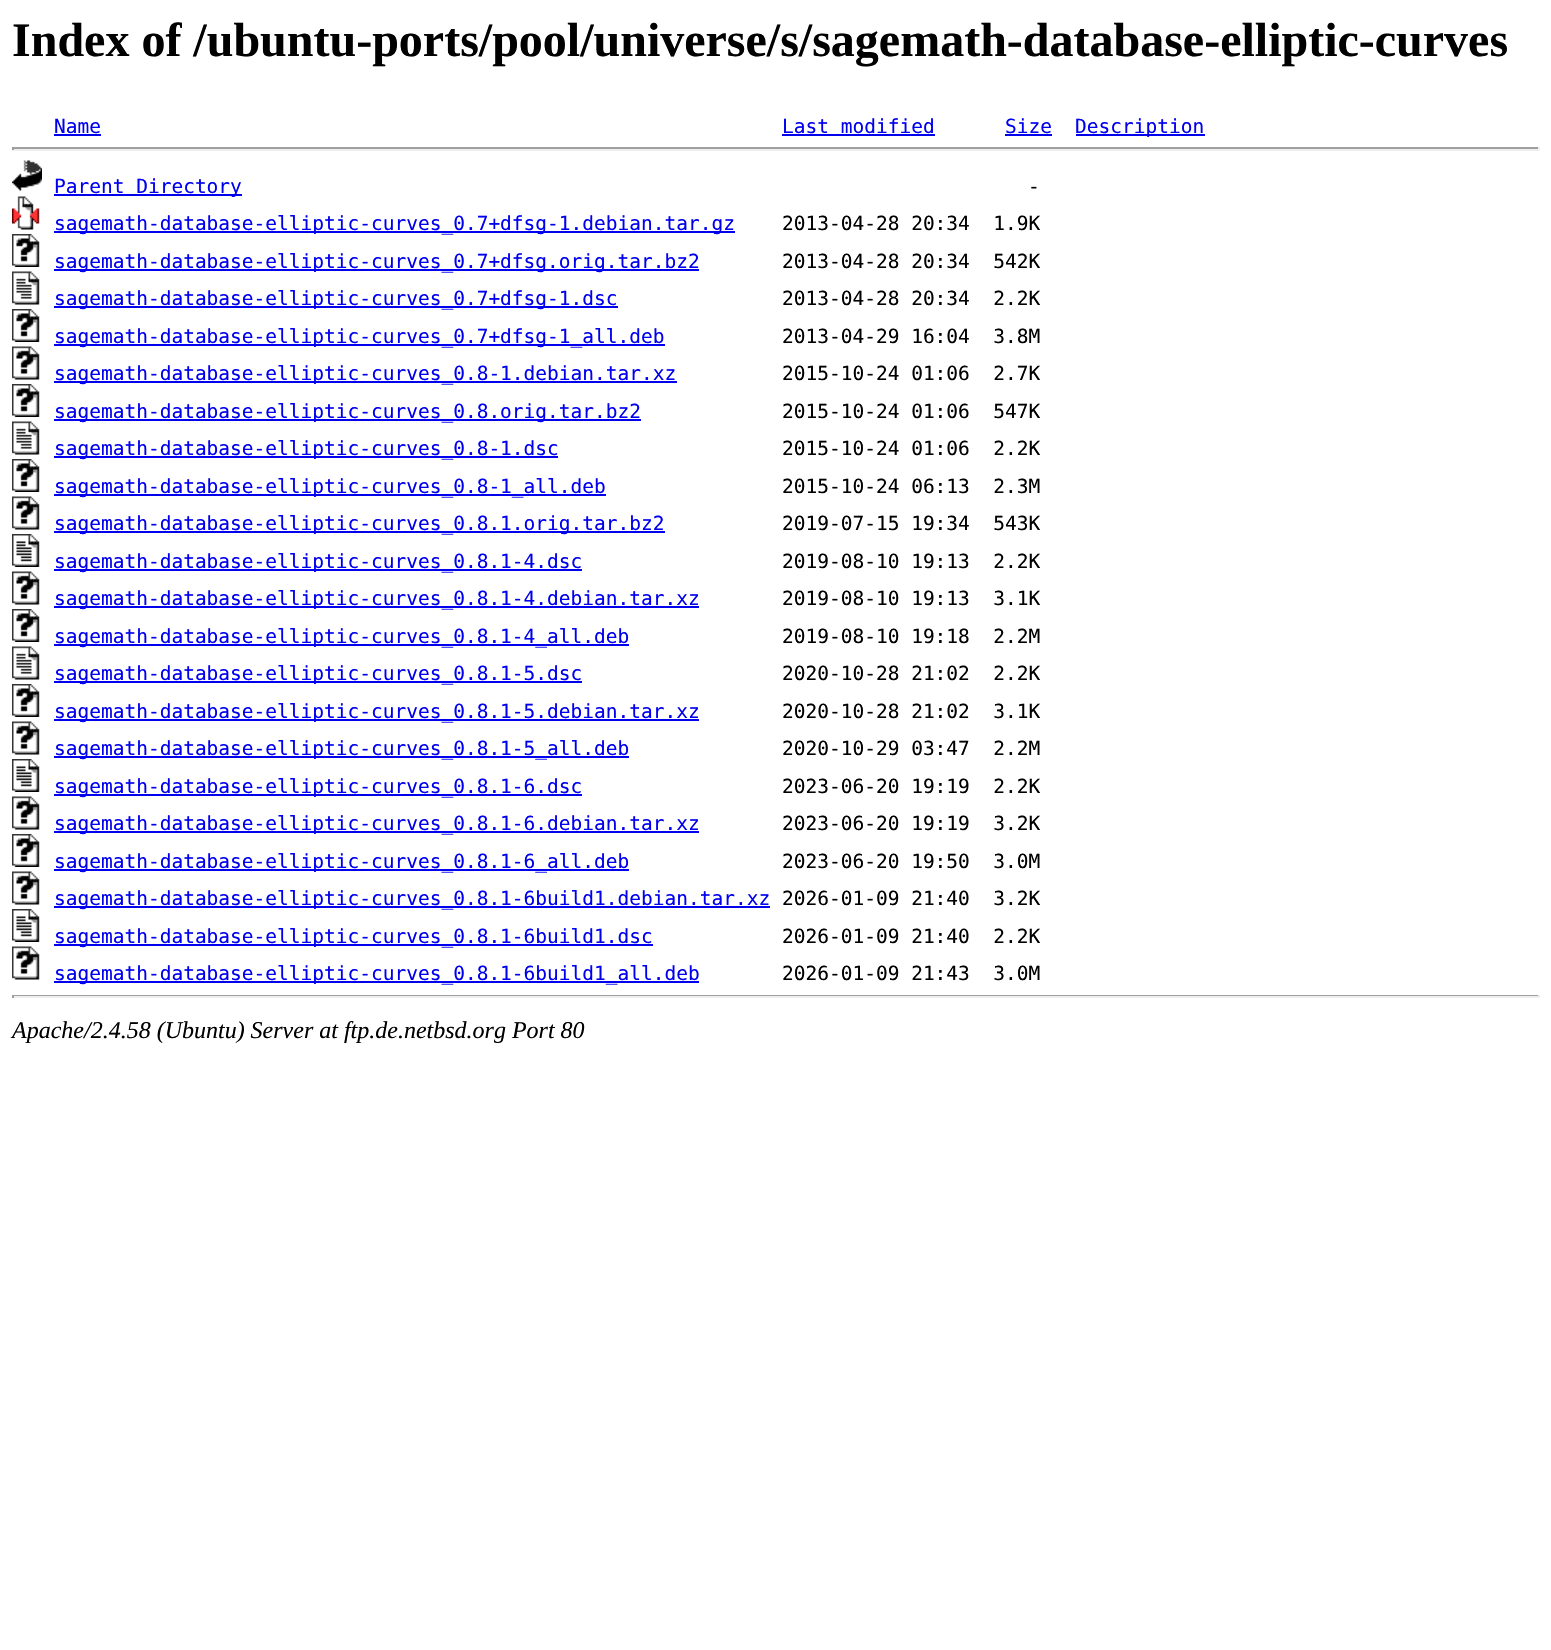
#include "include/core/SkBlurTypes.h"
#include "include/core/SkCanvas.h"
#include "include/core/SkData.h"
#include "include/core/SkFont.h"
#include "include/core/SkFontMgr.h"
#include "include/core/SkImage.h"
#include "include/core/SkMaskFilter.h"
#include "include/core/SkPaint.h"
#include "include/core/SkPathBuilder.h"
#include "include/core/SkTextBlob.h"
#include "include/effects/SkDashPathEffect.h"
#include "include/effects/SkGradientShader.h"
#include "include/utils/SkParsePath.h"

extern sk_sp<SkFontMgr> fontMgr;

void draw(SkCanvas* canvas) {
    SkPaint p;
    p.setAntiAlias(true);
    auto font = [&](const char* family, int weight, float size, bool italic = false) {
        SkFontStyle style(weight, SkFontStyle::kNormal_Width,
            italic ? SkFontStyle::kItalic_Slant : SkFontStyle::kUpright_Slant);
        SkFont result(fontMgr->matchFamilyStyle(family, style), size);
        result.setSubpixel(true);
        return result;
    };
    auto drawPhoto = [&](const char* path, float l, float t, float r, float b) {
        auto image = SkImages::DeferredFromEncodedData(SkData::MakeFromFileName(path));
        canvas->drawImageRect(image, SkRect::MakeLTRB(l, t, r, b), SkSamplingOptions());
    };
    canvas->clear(0xFFFFFFFF);
    auto font1 = font("Liberation Serif", 700, 48);
    p.setColor(0xFF000000);
    canvas->drawString("Index of /ubuntu-ports/pool/universe/s/sagemath-database-elliptic-curves", 12, 56, font1, p);
    auto font2 = font("DejaVu Sans Mono", 400, 19.5f);
    p.setColor(0xFF0000EE);
    canvas->drawString("Name", 54, 133, font2, p);
    canvas->drawRect(SkRect::MakeLTRB(54, 134, 101, 136), p);
    canvas->drawString("Last modified", 782, 133, font2, p);
    canvas->drawRect(SkRect::MakeLTRB(782, 134, 935, 136), p);
    canvas->drawString("Size", 1005, 133, font2, p);
    canvas->drawRect(SkRect::MakeLTRB(1005, 134, 1052, 136), p);
    canvas->drawRect(SkRect::MakeLTRB(1076, 134, 1205, 136), p);
    canvas->drawString("Description", 1075, 133, font2, p);
    {
        const struct { float l, t, r, b; SkColor color; } items[] = {
            {12, 147, 1539, 149, 0xFF9F9F9F},
            {1538, 147, 1540, 150, 0xFFEEEEEE},
            {12, 149, 1539, 151, 0xFFEEEEEE},
            {12, 147, 14, 150, 0xFF9F9F9F},
        };
        for (auto [l, t, r, b, color] : items) {
            p.setColor(color);
            canvas->drawRect(SkRect::MakeLTRB(l, t, r, b), p);
        }
    }
    drawPhoto("media/1.png", 12, 160, 42, 191);
    p.setColor(0xFF0000EE);
    canvas->drawRect(SkRect::MakeLTRB(54, 194, 242, 196), p);
    canvas->drawString("Parent Directory", 54, 193, font2, p);
    p.setColor(0xFF000000);
    canvas->drawString("-", 1028, 193, font2, p);
    drawPhoto("media/2.png", 12, 196, 40, 230);
    p.setColor(0xFF0000EE);
    canvas->drawRect(SkRect::MakeLTRB(54, 231, 735, 233), p);
    canvas->drawString("sagemath-database-elliptic-curves_0.7+dfsg-1.debian.tar.gz", 54, 230, font2, p);
    p.setColor(0xFF000000);
    canvas->drawString("2013-04-28 20:34  1.9K", 782, 230, font2, p);
    drawPhoto("media/3.png", 12, 234, 40, 267);
    p.setColor(0xFF0000EE);
    canvas->drawRect(SkRect::MakeLTRB(54, 269, 699, 271), p);
    canvas->drawString("sagemath-database-elliptic-curves_0.7+dfsg.orig.tar.bz2", 54, 268, font2, p);
    p.setColor(0xFF000000);
    canvas->drawString("2013-04-28 20:34  542K", 782, 268, font2, p);
    drawPhoto("media/4.png", 12, 271, 40, 305);
    p.setColor(0xFF0000EE);
    canvas->drawRect(SkRect::MakeLTRB(54, 306, 618, 308), p);
    canvas->drawString("sagemath-database-elliptic-curves_0.7+dfsg-1.dsc", 54, 305, font2, p);
    p.setColor(0xFF000000);
    canvas->drawString("2013-04-28 20:34  2.2K", 782, 305, font2, p);
    drawPhoto("media/3.png", 12, 309, 40, 342);
    p.setColor(0xFF0000EE);
    canvas->drawRect(SkRect::MakeLTRB(54, 344, 665, 346), p);
    canvas->drawString("sagemath-database-elliptic-curves_0.7+dfsg-1_all.deb", 54, 343, font2, p);
    p.setColor(0xFF000000);
    canvas->drawString("2013-04-29 16:04  3.8M", 782, 343, font2, p);
    drawPhoto("media/5.png", 12, 346, 40, 380);
    p.setColor(0xFF0000EE);
    canvas->drawRect(SkRect::MakeLTRB(54, 381, 677, 383), p);
    canvas->drawString("sagemath-database-elliptic-curves_0.8-1.debian.tar.xz", 54, 380, font2, p);
    p.setColor(0xFF000000);
    canvas->drawString("2015-10-24 01:06  2.7K", 782, 380, font2, p);
    drawPhoto("media/3.png", 12, 384, 40, 417);
    p.setColor(0xFF0000EE);
    canvas->drawRect(SkRect::MakeLTRB(54, 419, 641, 421), p);
    canvas->drawString("sagemath-database-elliptic-curves_0.8.orig.tar.bz2", 54, 418, font2, p);
    p.setColor(0xFF000000);
    canvas->drawString("2015-10-24 01:06  547K", 782, 418, font2, p);
    drawPhoto("media/4.png", 12, 421, 40, 455);
    p.setColor(0xFF0000EE);
    canvas->drawRect(SkRect::MakeLTRB(54, 456, 558, 458), p);
    canvas->drawString("sagemath-database-elliptic-curves_0.8-1.dsc", 54, 455, font2, p);
    p.setColor(0xFF000000);
    canvas->drawString("2015-10-24 01:06  2.2K", 782, 455, font2, p);
    drawPhoto("media/3.png", 12, 459, 40, 492);
    p.setColor(0xFF0000EE);
    canvas->drawRect(SkRect::MakeLTRB(54, 494, 606, 496), p);
    canvas->drawString("sagemath-database-elliptic-curves_0.8-1_all.deb", 54, 493, font2, p);
    p.setColor(0xFF000000);
    canvas->drawString("2015-10-24 06:13  2.3M", 782, 493, font2, p);
    drawPhoto("media/5.png", 12, 496, 40, 530);
    p.setColor(0xFF0000EE);
    canvas->drawRect(SkRect::MakeLTRB(54, 531, 665, 533), p);
    canvas->drawString("sagemath-database-elliptic-curves_0.8.1.orig.tar.bz2", 54, 530, font2, p);
    p.setColor(0xFF000000);
    canvas->drawString("2019-07-15 19:34  543K", 782, 530, font2, p);
    drawPhoto("media/6.png", 12, 534, 40, 567);
    p.setColor(0xFF0000EE);
    canvas->drawRect(SkRect::MakeLTRB(54, 569, 582, 571), p);
    canvas->drawString("sagemath-database-elliptic-curves_0.8.1-4.dsc", 54, 568, font2, p);
    p.setColor(0xFF000000);
    canvas->drawString("2019-08-10 19:13  2.2K", 782, 568, font2, p);
    drawPhoto("media/5.png", 12, 571, 40, 605);
    p.setColor(0xFF0000EE);
    canvas->drawRect(SkRect::MakeLTRB(54, 606, 699, 608), p);
    canvas->drawString("sagemath-database-elliptic-curves_0.8.1-4.debian.tar.xz", 54, 605, font2, p);
    p.setColor(0xFF000000);
    canvas->drawString("2019-08-10 19:13  3.1K", 782, 605, font2, p);
    drawPhoto("media/3.png", 12, 609, 40, 642);
    p.setColor(0xFF0000EE);
    canvas->drawRect(SkRect::MakeLTRB(54, 644, 629, 646), p);
    canvas->drawString("sagemath-database-elliptic-curves_0.8.1-4_all.deb", 54, 643, font2, p);
    p.setColor(0xFF000000);
    canvas->drawString("2019-08-10 19:18  2.2M", 782, 643, font2, p);
    drawPhoto("media/4.png", 12, 646, 40, 680);
    p.setColor(0xFF0000EE);
    canvas->drawRect(SkRect::MakeLTRB(54, 681, 582, 683), p);
    canvas->drawString("sagemath-database-elliptic-curves_0.8.1-5.dsc", 54, 680, font2, p);
    p.setColor(0xFF000000);
    canvas->drawString("2020-10-28 21:02  2.2K", 782, 680, font2, p);
    drawPhoto("media/3.png", 12, 684, 40, 717);
    p.setColor(0xFF0000EE);
    canvas->drawRect(SkRect::MakeLTRB(54, 719, 699, 721), p);
    canvas->drawString("sagemath-database-elliptic-curves_0.8.1-5.debian.tar.xz", 54, 718, font2, p);
    p.setColor(0xFF000000);
    canvas->drawString("2020-10-28 21:02  3.1K", 782, 718, font2, p);
    drawPhoto("media/5.png", 12, 721, 40, 755);
    p.setColor(0xFF0000EE);
    canvas->drawRect(SkRect::MakeLTRB(54, 756, 629, 758), p);
    canvas->drawString("sagemath-database-elliptic-curves_0.8.1-5_all.deb", 54, 755, font2, p);
    p.setColor(0xFF000000);
    canvas->drawString("2020-10-29 03:47  2.2M", 782, 755, font2, p);
    drawPhoto("media/6.png", 12, 759, 40, 792);
    p.setColor(0xFF0000EE);
    canvas->drawRect(SkRect::MakeLTRB(54, 794, 582, 796), p);
    canvas->drawString("sagemath-database-elliptic-curves_0.8.1-6.dsc", 54, 793, font2, p);
    p.setColor(0xFF000000);
    canvas->drawString("2023-06-20 19:19  2.2K", 782, 793, font2, p);
    drawPhoto("media/5.png", 12, 796, 40, 830);
    p.setColor(0xFF0000EE);
    canvas->drawRect(SkRect::MakeLTRB(54, 831, 699, 833), p);
    canvas->drawString("sagemath-database-elliptic-curves_0.8.1-6.debian.tar.xz", 54, 830, font2, p);
    p.setColor(0xFF000000);
    canvas->drawString("2023-06-20 19:19  3.2K", 782, 830, font2, p);
    drawPhoto("media/3.png", 12, 834, 40, 867);
    p.setColor(0xFF0000EE);
    canvas->drawRect(SkRect::MakeLTRB(54, 869, 629, 871), p);
    canvas->drawString("sagemath-database-elliptic-curves_0.8.1-6_all.deb", 54, 868, font2, p);
    p.setColor(0xFF000000);
    canvas->drawString("2023-06-20 19:50  3.0M", 782, 868, font2, p);
    drawPhoto("media/5.png", 12, 871, 40, 905);
    p.setColor(0xFF0000EE);
    canvas->drawRect(SkRect::MakeLTRB(54, 906, 770, 908), p);
    canvas->drawString("sagemath-database-elliptic-curves_0.8.1-6build1.debian.tar.xz", 54, 905, font2, p);
    p.setColor(0xFF000000);
    canvas->drawString("2026-01-09 21:40  3.2K", 782, 905, font2, p);
    drawPhoto("media/6.png", 12, 909, 40, 942);
    p.setColor(0xFF0000EE);
    canvas->drawRect(SkRect::MakeLTRB(54, 944, 653, 946), p);
    canvas->drawString("sagemath-database-elliptic-curves_0.8.1-6build1.dsc", 54, 943, font2, p);
    p.setColor(0xFF000000);
    canvas->drawString("2026-01-09 21:40  2.2K", 782, 943, font2, p);
    drawPhoto("media/5.png", 12, 946, 40, 980);
    p.setColor(0xFF0000EE);
    canvas->drawRect(SkRect::MakeLTRB(54, 981, 699, 983), p);
    canvas->drawString("sagemath-database-elliptic-curves_0.8.1-6build1_all.deb", 54, 980, font2, p);
    p.setColor(0xFF000000);
    canvas->drawString("2026-01-09 21:43  3.0M", 782, 980, font2, p);
    {
        const struct { float l, t, r, b; SkColor color; } items[] = {
            {12, 995, 1539, 996, 0xFF9F9F9F},
            {1538, 995, 1540, 998, 0xFFEEEEEE},
            {12, 996, 1539, 998, 0xFFEEEEEE},
            {12, 995, 14, 998, 0xFF9F9F9F},
        };
        for (auto [l, t, r, b, color] : items) {
            p.setColor(color);
            canvas->drawRect(SkRect::MakeLTRB(l, t, r, b), p);
        }
    }
    auto font3 = font("Liberation Serif", 400, 24, true);
    p.setColor(0xFF000000);
    canvas->drawString("Apache/2.4.58 (Ubuntu) Server at ftp.de.netbsd.org Port 80", 12, 1038, font3, p);
}
